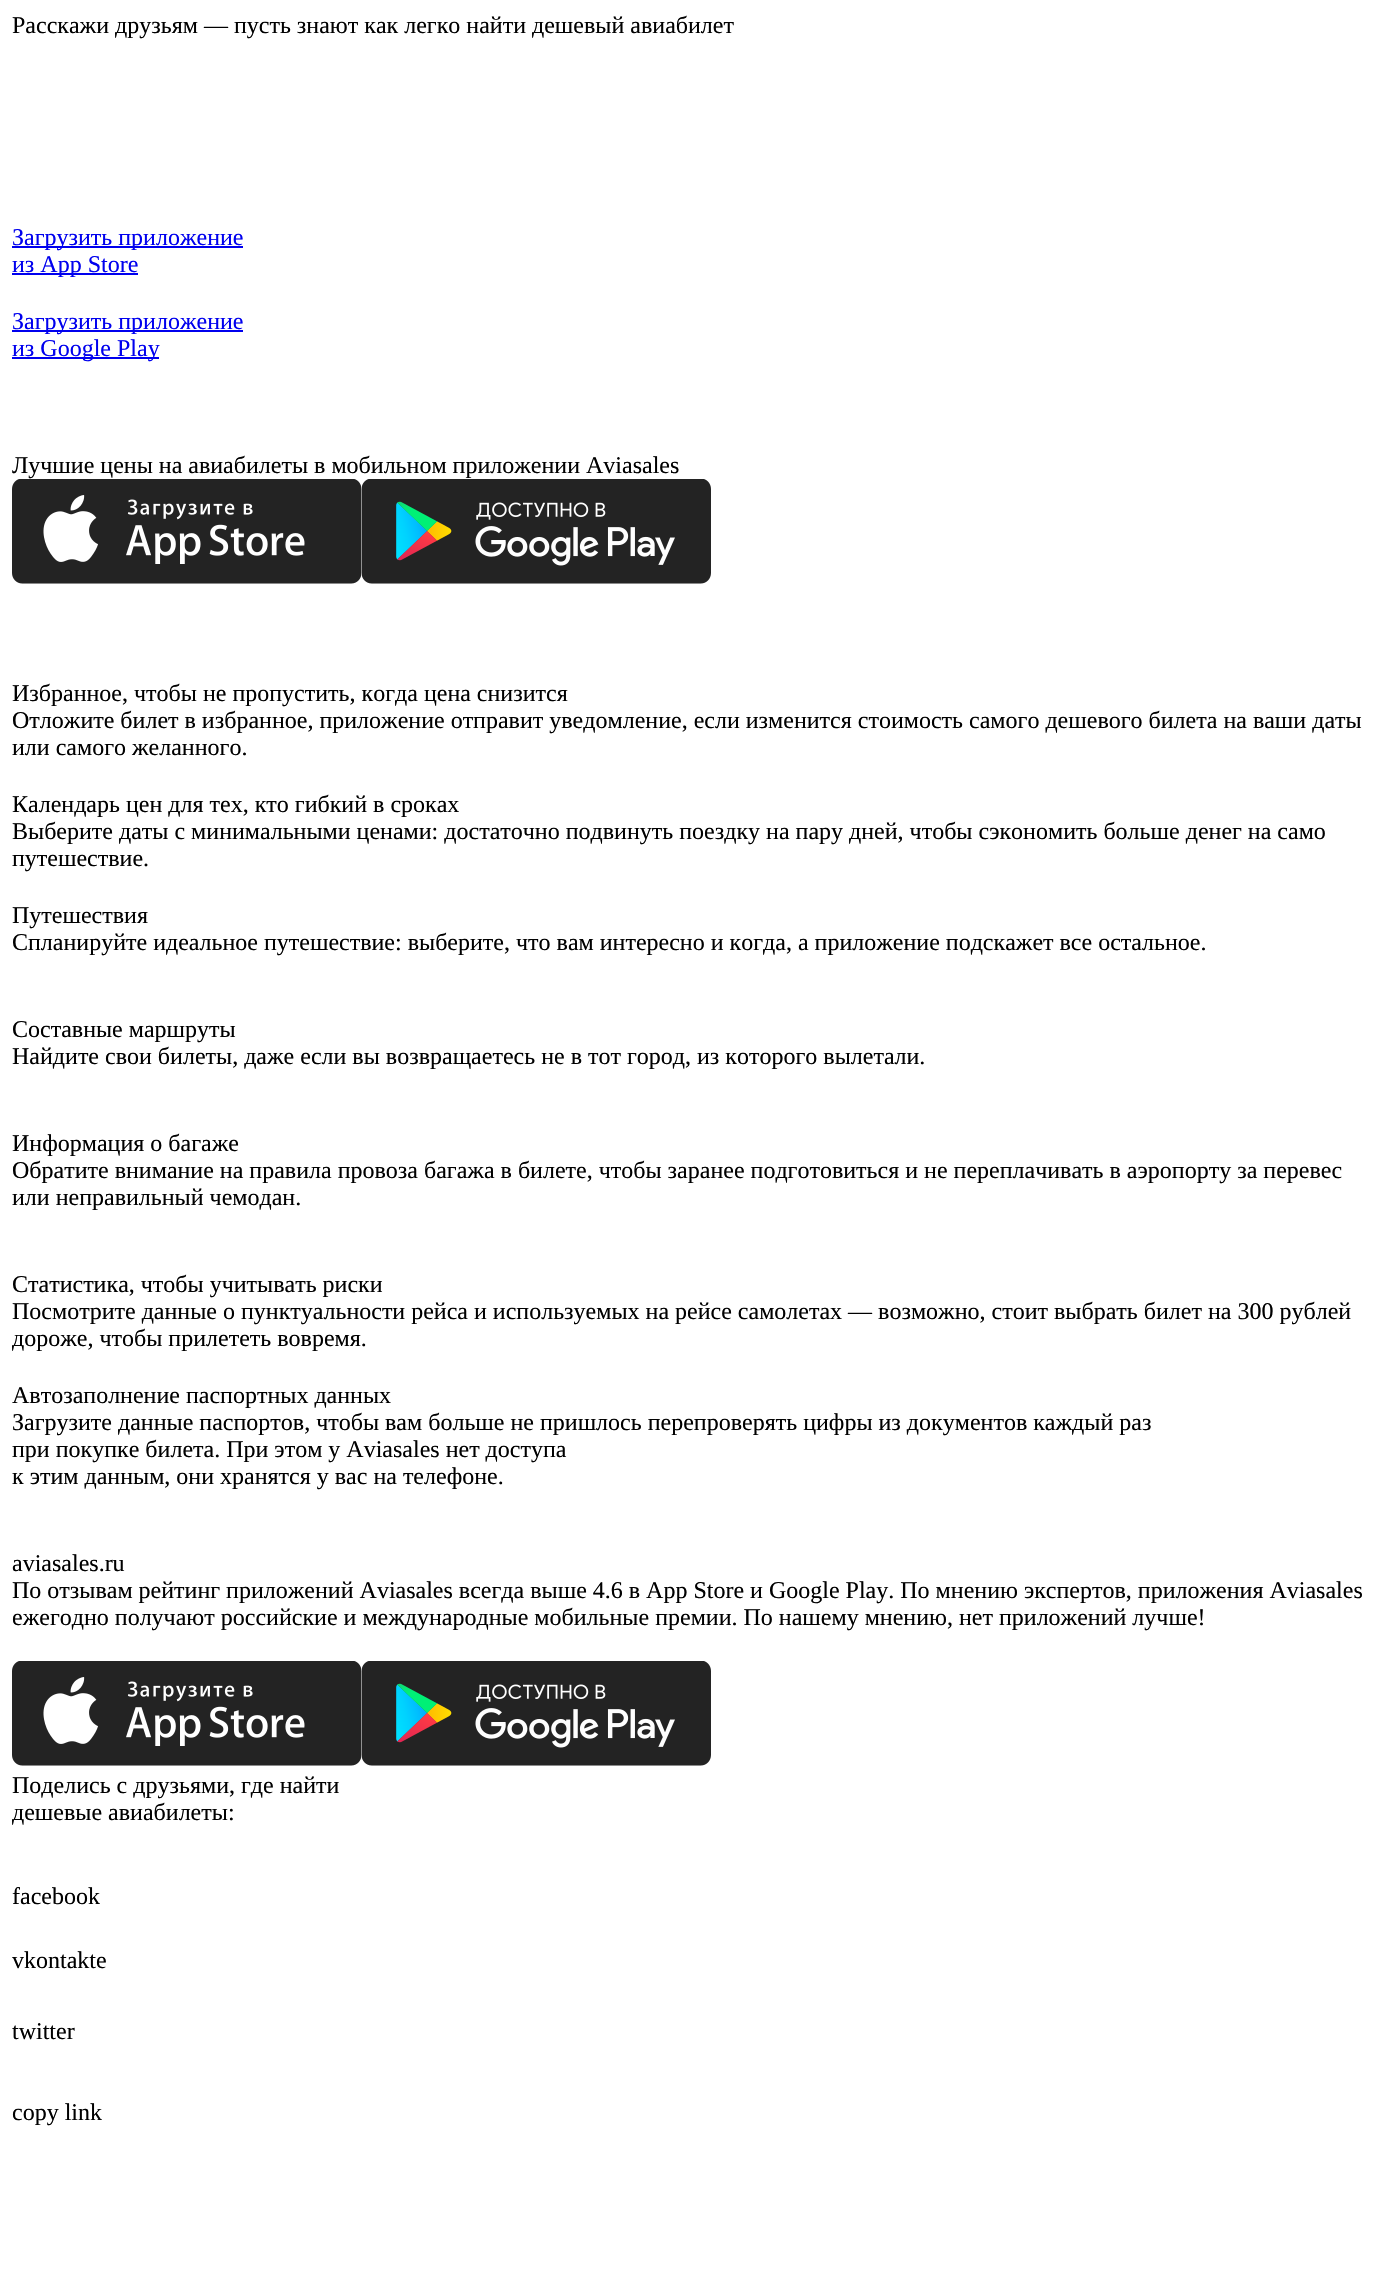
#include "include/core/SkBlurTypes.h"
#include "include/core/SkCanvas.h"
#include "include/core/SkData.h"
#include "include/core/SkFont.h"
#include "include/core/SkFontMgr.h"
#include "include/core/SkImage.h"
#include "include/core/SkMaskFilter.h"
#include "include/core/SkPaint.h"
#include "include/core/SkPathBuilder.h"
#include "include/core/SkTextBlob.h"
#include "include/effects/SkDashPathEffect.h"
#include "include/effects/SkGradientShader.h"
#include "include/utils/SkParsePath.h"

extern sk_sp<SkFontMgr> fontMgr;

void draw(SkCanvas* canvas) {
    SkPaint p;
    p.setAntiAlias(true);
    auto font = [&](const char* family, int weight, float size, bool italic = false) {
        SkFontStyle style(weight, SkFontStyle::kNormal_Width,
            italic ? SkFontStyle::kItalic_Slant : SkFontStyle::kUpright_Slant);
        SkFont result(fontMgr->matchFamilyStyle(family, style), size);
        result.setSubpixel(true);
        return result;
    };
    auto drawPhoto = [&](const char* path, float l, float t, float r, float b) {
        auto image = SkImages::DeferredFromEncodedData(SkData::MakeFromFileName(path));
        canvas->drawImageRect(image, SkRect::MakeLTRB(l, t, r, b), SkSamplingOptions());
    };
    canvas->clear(0xFFFFFFFF);
    auto font1 = font("Liberation Serif", 400, 24);
    p.setColor(0xFF000000);
    canvas->drawString("Расскажи друзьям — пусть знают как легко найти дешевый авиабилет", 12, 33, font1, p);
    p.setColor(0xFF0000EE);
    canvas->drawRect(SkRect::MakeLTRB(12, 246, 243, 248), p);
    canvas->drawString("Загрузить приложение", 12, 245, font1, p);
    canvas->drawRect(SkRect::MakeLTRB(12, 273, 138, 275), p);
    canvas->drawString("из App Store", 12, 272, font1, p);
    canvas->drawRect(SkRect::MakeLTRB(12, 330, 243, 332), p);
    canvas->drawString("Загрузить приложение", 12, 329, font1, p);
    canvas->drawRect(SkRect::MakeLTRB(12, 357, 159, 359), p);
    canvas->drawString("из Google Play", 12, 356, font1, p);
    p.setColor(0xFF000000);
    canvas->drawString("Лучшие цены на авиабилеты в мобильном приложении Aviasales", 12, 473, font1, p);
    drawPhoto("media/1.png", 12, 479, 362, 584);
    drawPhoto("media/2.png", 362, 479, 711, 584);
    {
        const struct { const char* s; float x, y; } items[] = {
            {"Избранное, чтобы не пропустить, когда цена снизится", 12, 701},
            {"Отложите билет в избранное, приложение отправит уведомление, если изменится стоимость самого дешевого билета на ваши даты", 12, 728},
            {"или самого желанного.", 12, 755},
            {"Календарь цен для тех, кто гибкий в сроках", 12, 812},
            {"Выберите даты с минимальными ценами: достаточно подвинуть поездку на пару дней, чтобы сэкономить больше денег на само", 12, 839},
            {"путешествие.", 12, 866},
            {"Путешествия", 12, 923},
            {"Спланируйте идеальное путешествие: выберите, что вам интересно и когда, а приложение подскажет все остальное.", 12, 950},
            {"Cоставные маршруты", 12, 1037},
            {"Найдите свои билеты, даже если вы возвращаетесь не в тот город, из которого вылетали.", 12, 1064},
            {"Информация о багаже", 12, 1151},
            {"Обратите внимание на правила провоза багажа в билете, чтобы заранее подготовиться и не переплачивать в аэропорту за перевес", 12, 1178},
            {"или неправильный чемодан.", 12, 1205},
            {"Статистика, чтобы учитывать риски", 12, 1292},
            {"Посмотрите данные о пунктуальности рейса и используемых на рейсе самолетах — возможно, стоит выбрать билет на 300 рублей", 12, 1319},
            {"дороже, чтобы прилететь вовремя.", 12, 1346},
            {"Автозаполнение паспортных данных", 12, 1403},
            {"Загрузите данные паспортов, чтобы вам больше не пришлось перепроверять цифры из документов каждый раз", 12, 1430},
            {"при покупке билета. При этом у Aviasales нет доступа", 12, 1457},
            {"к этим данным, они хранятся у вас на телефоне.", 12, 1484},
            {"aviasales.ru", 12, 1571},
            {"По отзывам рейтинг приложений Aviasales всегда выше 4.6 в App Store и Google Play. По мнению экспертов, приложения Aviasales", 12, 1598},
            {"ежегодно получают российские и международные мобильные премии. По нашему мнению, нет приложений лучше!", 12, 1625},
        };
        for (auto [s, x, y] : items) {
            canvas->drawString(s, x, y, font1, p);
        }
    }
    drawPhoto("media/1.png", 12, 1661, 362, 1766);
    drawPhoto("media/2.png", 362, 1661, 711, 1766);
    {
        const struct { const char* s; float x, y; } items[] = {
            {"Поделись с друзьями, где найти", 12, 1793},
            {"дешевые авиабилеты:", 12, 1820},
            {"facebook", 12, 1904},
            {"vkontakte", 12, 1968},
            {"twitter", 12, 2039},
            {"copy link", 12, 2120},
        };
        for (auto [s, x, y] : items) {
            canvas->drawString(s, x, y, font1, p);
        }
    }
}
